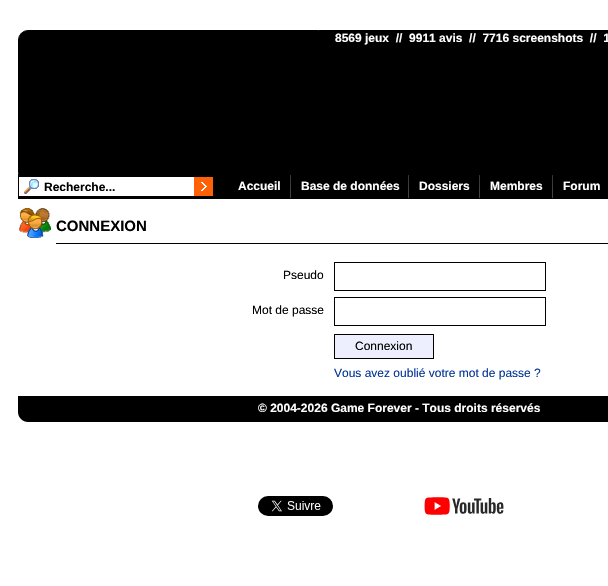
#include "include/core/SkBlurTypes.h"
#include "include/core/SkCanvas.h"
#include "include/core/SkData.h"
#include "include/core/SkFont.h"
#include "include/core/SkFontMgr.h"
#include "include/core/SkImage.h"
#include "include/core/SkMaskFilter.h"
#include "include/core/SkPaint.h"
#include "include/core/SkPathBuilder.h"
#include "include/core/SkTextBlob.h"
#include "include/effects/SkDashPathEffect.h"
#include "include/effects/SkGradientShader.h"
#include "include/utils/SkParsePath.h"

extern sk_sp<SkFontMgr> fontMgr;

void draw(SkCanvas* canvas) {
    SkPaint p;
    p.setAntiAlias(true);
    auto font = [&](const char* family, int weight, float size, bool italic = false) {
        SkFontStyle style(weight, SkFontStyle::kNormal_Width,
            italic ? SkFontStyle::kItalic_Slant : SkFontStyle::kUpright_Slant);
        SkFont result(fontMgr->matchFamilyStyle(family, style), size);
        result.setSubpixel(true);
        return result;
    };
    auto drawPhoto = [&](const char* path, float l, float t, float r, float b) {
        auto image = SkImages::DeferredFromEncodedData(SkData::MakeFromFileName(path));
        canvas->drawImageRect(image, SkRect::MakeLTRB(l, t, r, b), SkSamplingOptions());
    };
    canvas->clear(0xFFFFFFFF);
    p.setColor(0xFF000000);
    canvas->drawRoundRect(SkRect::MakeLTRB(18.5f, 30.5f, 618.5f, 181.5f), 9.5f, 9.5f, p);
    p.setStyle(SkPaint::kStroke_Style);
    p.setStrokeWidth(1);
    canvas->drawRoundRect(SkRect::MakeLTRB(18.5f, 30.5f, 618.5f, 181.5f), 9.5f, 9.5f, p);
    auto font1 = font("Liberation Sans", 700, 12);
    p.setStyle(SkPaint::kFill_Style);
    p.setColor(0xFFFFFFFF);
    canvas->drawString("8569 jeux  //  9911 avis  //  7716 screenshots  //  1", 335, 42, font1, p);
    p.setStyle(SkPaint::kStroke_Style);
    p.setColor(0xFF000000);
    canvas->drawRect(SkRect::MakeLTRB(18.5f, 174.5f, 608.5f, 198.5f), p);
    p.setStyle(SkPaint::kFill_Style);
    canvas->drawRect(SkRect::MakeLTRB(19, 176, 608, 198), p);
    p.setColor(0xFFFFFFFF);
    canvas->drawRect(SkRect::MakeLTRB(19, 177, 194, 196), p);
    drawPhoto("media/1.png", 24, 179, 39, 194);
    p.setColor(0xFF000000);
    canvas->drawString("Recherche...", 44, 191, font1, p);
    drawPhoto("media/2.png", 194, 177, 213, 196);
    drawPhoto("media/3.png", 290, 175, 291, 198);
    p.setColor(0xFFFFFFFF);
    canvas->drawString("Accueil", 238, 190, font1, p);
    drawPhoto("media/3.png", 408, 175, 409, 198);
    canvas->drawString("Base de données", 301, 190, font1, p);
    drawPhoto("media/3.png", 479, 175, 480, 198);
    canvas->drawString("Dossiers", 419, 190, font1, p);
    drawPhoto("media/3.png", 552, 175, 553, 198);
    canvas->drawString("Membres", 490, 190, font1, p);
    canvas->drawString("Forum", 563, 190, font1, p);
    drawPhoto("media/4.png", 19, 208, 51, 238);
    p.setColor(0xFF000000);
    canvas->drawRect(SkRect::MakeLTRB(56, 243, 608, 244), p);
    auto font2 = font("Liberation Sans", 700, 15);
    canvas->drawString("CONNEXION", 56, 231, font2, p);
    auto font3 = font("Liberation Sans", 400, 12);
    canvas->drawString("Pseudo", 283, 279, font3, p);
    p.setStyle(SkPaint::kStroke_Style);
    canvas->drawRect(SkRect::MakeLTRB(334.5f, 262.5f, 545.5f, 290.5f), p);
    p.setStyle(SkPaint::kFill_Style);
    canvas->drawString("Mot de passe", 252, 314, font3, p);
    p.setStyle(SkPaint::kStroke_Style);
    canvas->drawRect(SkRect::MakeLTRB(334.5f, 297.5f, 545.5f, 325.5f), p);
    p.setStyle(SkPaint::kFill_Style);
    p.setColor(0xFFEDEFFF);
    canvas->drawRect(SkRect::MakeLTRB(334.5f, 334.5f, 433.5f, 358.5f), p);
    p.setStyle(SkPaint::kStroke_Style);
    p.setColor(0xFF000000);
    canvas->drawRect(SkRect::MakeLTRB(334.5f, 334.5f, 433.5f, 358.5f), p);
    p.setStyle(SkPaint::kFill_Style);
    canvas->drawString("Connexion", 355, 350, font3, p);
    p.setColor(0xFF043698);
    canvas->drawString("Vous avez oublié votre mot de passe ?", 334, 377, font3, p);
    p.setColor(0xFF000000);
    canvas->drawPath(SkPathBuilder().moveTo(18, 396).lineTo(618, 396).lineTo(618, 412).cubicTo(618, 417.5f, 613.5f, 422, 608, 422).lineTo(28, 422).cubicTo(22.5f, 422, 18, 417.5f, 18, 412).close().detach(), p);
    p.setColor(0xFFFFFFFF);
    canvas->drawString("© 2004-2026 Game Forever - Tous droits réservés", 258, 412, font1, p);
    drawPhoto("media/5.png", 258, 496, 333, 516);
    drawPhoto("media/6.png", 424, 497, 504, 515);
}
